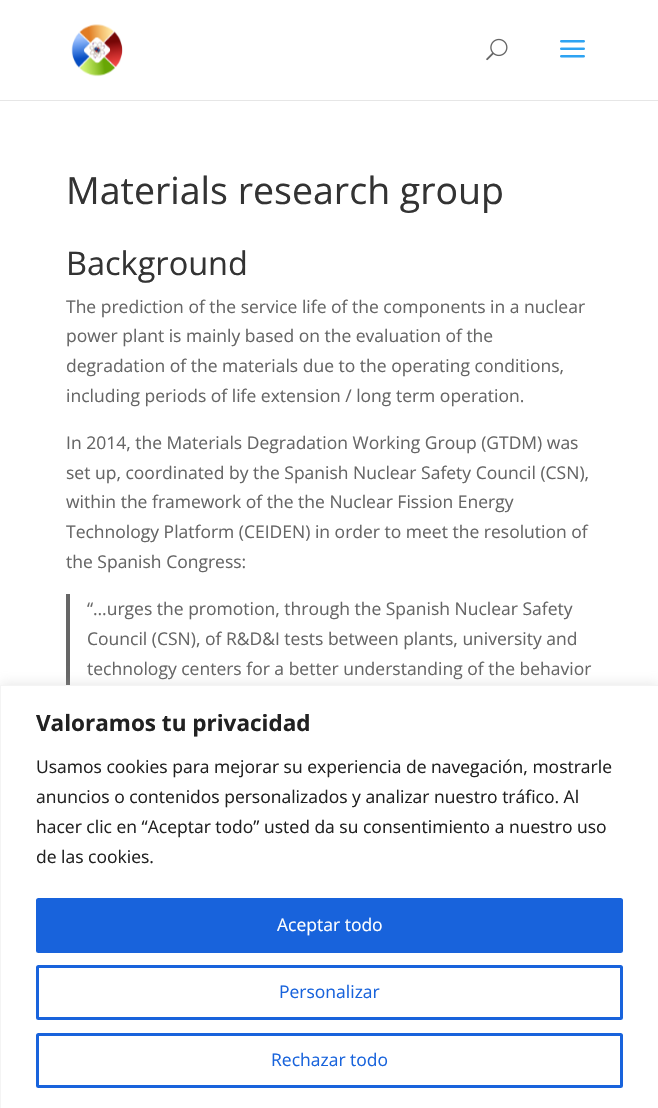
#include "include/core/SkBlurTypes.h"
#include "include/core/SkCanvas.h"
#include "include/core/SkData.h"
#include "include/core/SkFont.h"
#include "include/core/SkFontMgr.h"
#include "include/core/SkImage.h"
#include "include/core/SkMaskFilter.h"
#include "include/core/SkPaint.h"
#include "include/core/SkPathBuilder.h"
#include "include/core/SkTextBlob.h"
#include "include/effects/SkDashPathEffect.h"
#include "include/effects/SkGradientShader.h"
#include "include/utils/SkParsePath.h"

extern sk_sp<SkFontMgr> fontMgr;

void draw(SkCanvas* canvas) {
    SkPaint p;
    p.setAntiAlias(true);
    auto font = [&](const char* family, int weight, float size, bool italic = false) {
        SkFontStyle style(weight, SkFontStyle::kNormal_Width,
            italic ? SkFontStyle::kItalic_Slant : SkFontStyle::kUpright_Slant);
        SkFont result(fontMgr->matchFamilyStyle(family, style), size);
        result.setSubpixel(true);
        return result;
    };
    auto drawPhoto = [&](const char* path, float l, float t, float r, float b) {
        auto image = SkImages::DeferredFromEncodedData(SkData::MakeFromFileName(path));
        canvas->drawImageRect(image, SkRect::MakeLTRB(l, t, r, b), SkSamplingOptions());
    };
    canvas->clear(0xFFFFFFFF);
    p.setColor(0xFFE6E6E6);
    canvas->drawPath(SkPathBuilder().moveTo(0, 100).lineTo(0, 101).lineTo(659, 101).lineTo(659, 1).lineTo(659, 100).close().detach(), p);
    drawPhoto("media/1.png", 71, 24, 123, 77);
    drawPhoto("media/2.png", 486, 38, 508, 61);
    drawPhoto("media/3.png", 560, 40, 585, 58);
    auto font1 = font("Open Sans", 400, 37.5f);
    p.setColor(0xFF333333);
    canvas->drawString("Materials research group", 66, 204, font1, p);
    auto font2 = font("Open Sans", 400, 32.5f);
    canvas->drawString("Background", 66, 275, font2, p);
    auto font3 = font("Open Sans", 400, 17.5f);
    p.setColor(0xFF666666);
    {
        const struct { const char* s; float x, y; } items[] = {
            {"The prediction of the service life of the components in a nuclear", 66, 313},
            {"power plant is mainly based on the evaluation of the", 66, 342},
            {"degradation of the materials due to the operating conditions,", 66, 372},
            {"including periods of life extension / long term operation.", 66, 402},
            {"In 2014, the Materials Degradation Working Group (GTDM) was", 66, 449},
            {"set up, coordinated by the Spanish Nuclear Safety Council (CSN),", 66, 479},
            {"within the framework of the the Nuclear Fission Energy", 66, 508},
            {"Technology Platform (CEIDEN) in order to meet the resolution of", 66, 538},
            {"the Spanish Congress:", 66, 568},
        };
        for (auto [s, x, y] : items) {
            canvas->drawString(s, x, y, font3, p);
        }
    }
    canvas->drawRect(SkRect::MakeLTRB(66, 594, 70, 685), p);
    {
        const struct { const char* s; float x, y; } items[] = {
            {"“…urges the promotion, through the Spanish Nuclear Safety", 87, 615},
            {"Council (CSN), of R&D&I tests between plants, university and", 87, 645},
            {"technology centers for a better understanding of the behavior", 87, 675},
        };
        for (auto [s, x, y] : items) {
            canvas->drawString(s, x, y, font3, p);
        }
    }
    p.setColor(0x4DACABAB);
    p.setMaskFilter(SkMaskFilter::MakeBlur(kNormal_SkBlurStyle, 6));
    canvas->drawRect(SkRect::MakeLTRB(0, 684, 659, 1108), p);
    p.setMaskFilter(nullptr);
    p.setColor(0xFFFFFFFF);
    canvas->drawRect(SkRect::MakeLTRB(0.5f, 685.5f, 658.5f, 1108.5f), p);
    p.setStyle(SkPaint::kStroke_Style);
    p.setStrokeWidth(1);
    p.setColor(0xFFF4F4F4);
    canvas->drawRect(SkRect::MakeLTRB(0.5f, 685.5f, 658.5f, 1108.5f), p);
    auto font4 = font("Open Sans", 700, 22.5f);
    p.setStyle(SkPaint::kFill_Style);
    p.setColor(0xFF212121);
    canvas->drawString("Valoramos tu privacidad", 36, 731, font4, p);
    {
        const struct { const char* s; float x, y; } items[] = {
            {"Usamos cookies para mejorar su experiencia de navegación, mostrarle", 36, 773},
            {"anuncios o contenidos personalizados y analizar nuestro tráfico. Al", 36, 803},
            {"hacer clic en “Aceptar todo” usted da su consentimiento a nuestro uso", 36, 833},
            {"de las cookies.", 36, 863},
        };
        for (auto [s, x, y] : items) {
            canvas->drawString(s, x, y, font3, p);
        }
    }
    p.setColor(0xFF1863DC);
    canvas->drawRoundRect(SkRect::MakeLTRB(37.5f, 899.5f, 621.5f, 951.5f), 1, 1, p);
    p.setStyle(SkPaint::kStroke_Style);
    p.setStrokeWidth(3);
    canvas->drawRoundRect(SkRect::MakeLTRB(37.5f, 899.5f, 621.5f, 951.5f), 1, 1, p);
    p.setStyle(SkPaint::kFill_Style);
    p.setColor(0xFFFFFFFF);
    canvas->drawString("Aceptar todo", 277, 931, font3, p);
    p.setStyle(SkPaint::kStroke_Style);
    p.setColor(0xFF1863DC);
    canvas->drawRoundRect(SkRect::MakeLTRB(37.5f, 966.5f, 621.5f, 1018.5f), 1, 1, p);
    p.setStyle(SkPaint::kFill_Style);
    canvas->drawString("Personalizar", 279, 998, font3, p);
    p.setStyle(SkPaint::kStroke_Style);
    canvas->drawRoundRect(SkRect::MakeLTRB(37.5f, 1034.5f, 621.5f, 1086.5f), 1, 1, p);
    p.setStyle(SkPaint::kFill_Style);
    canvas->drawString("Rechazar todo", 271, 1066, font3, p);
}
